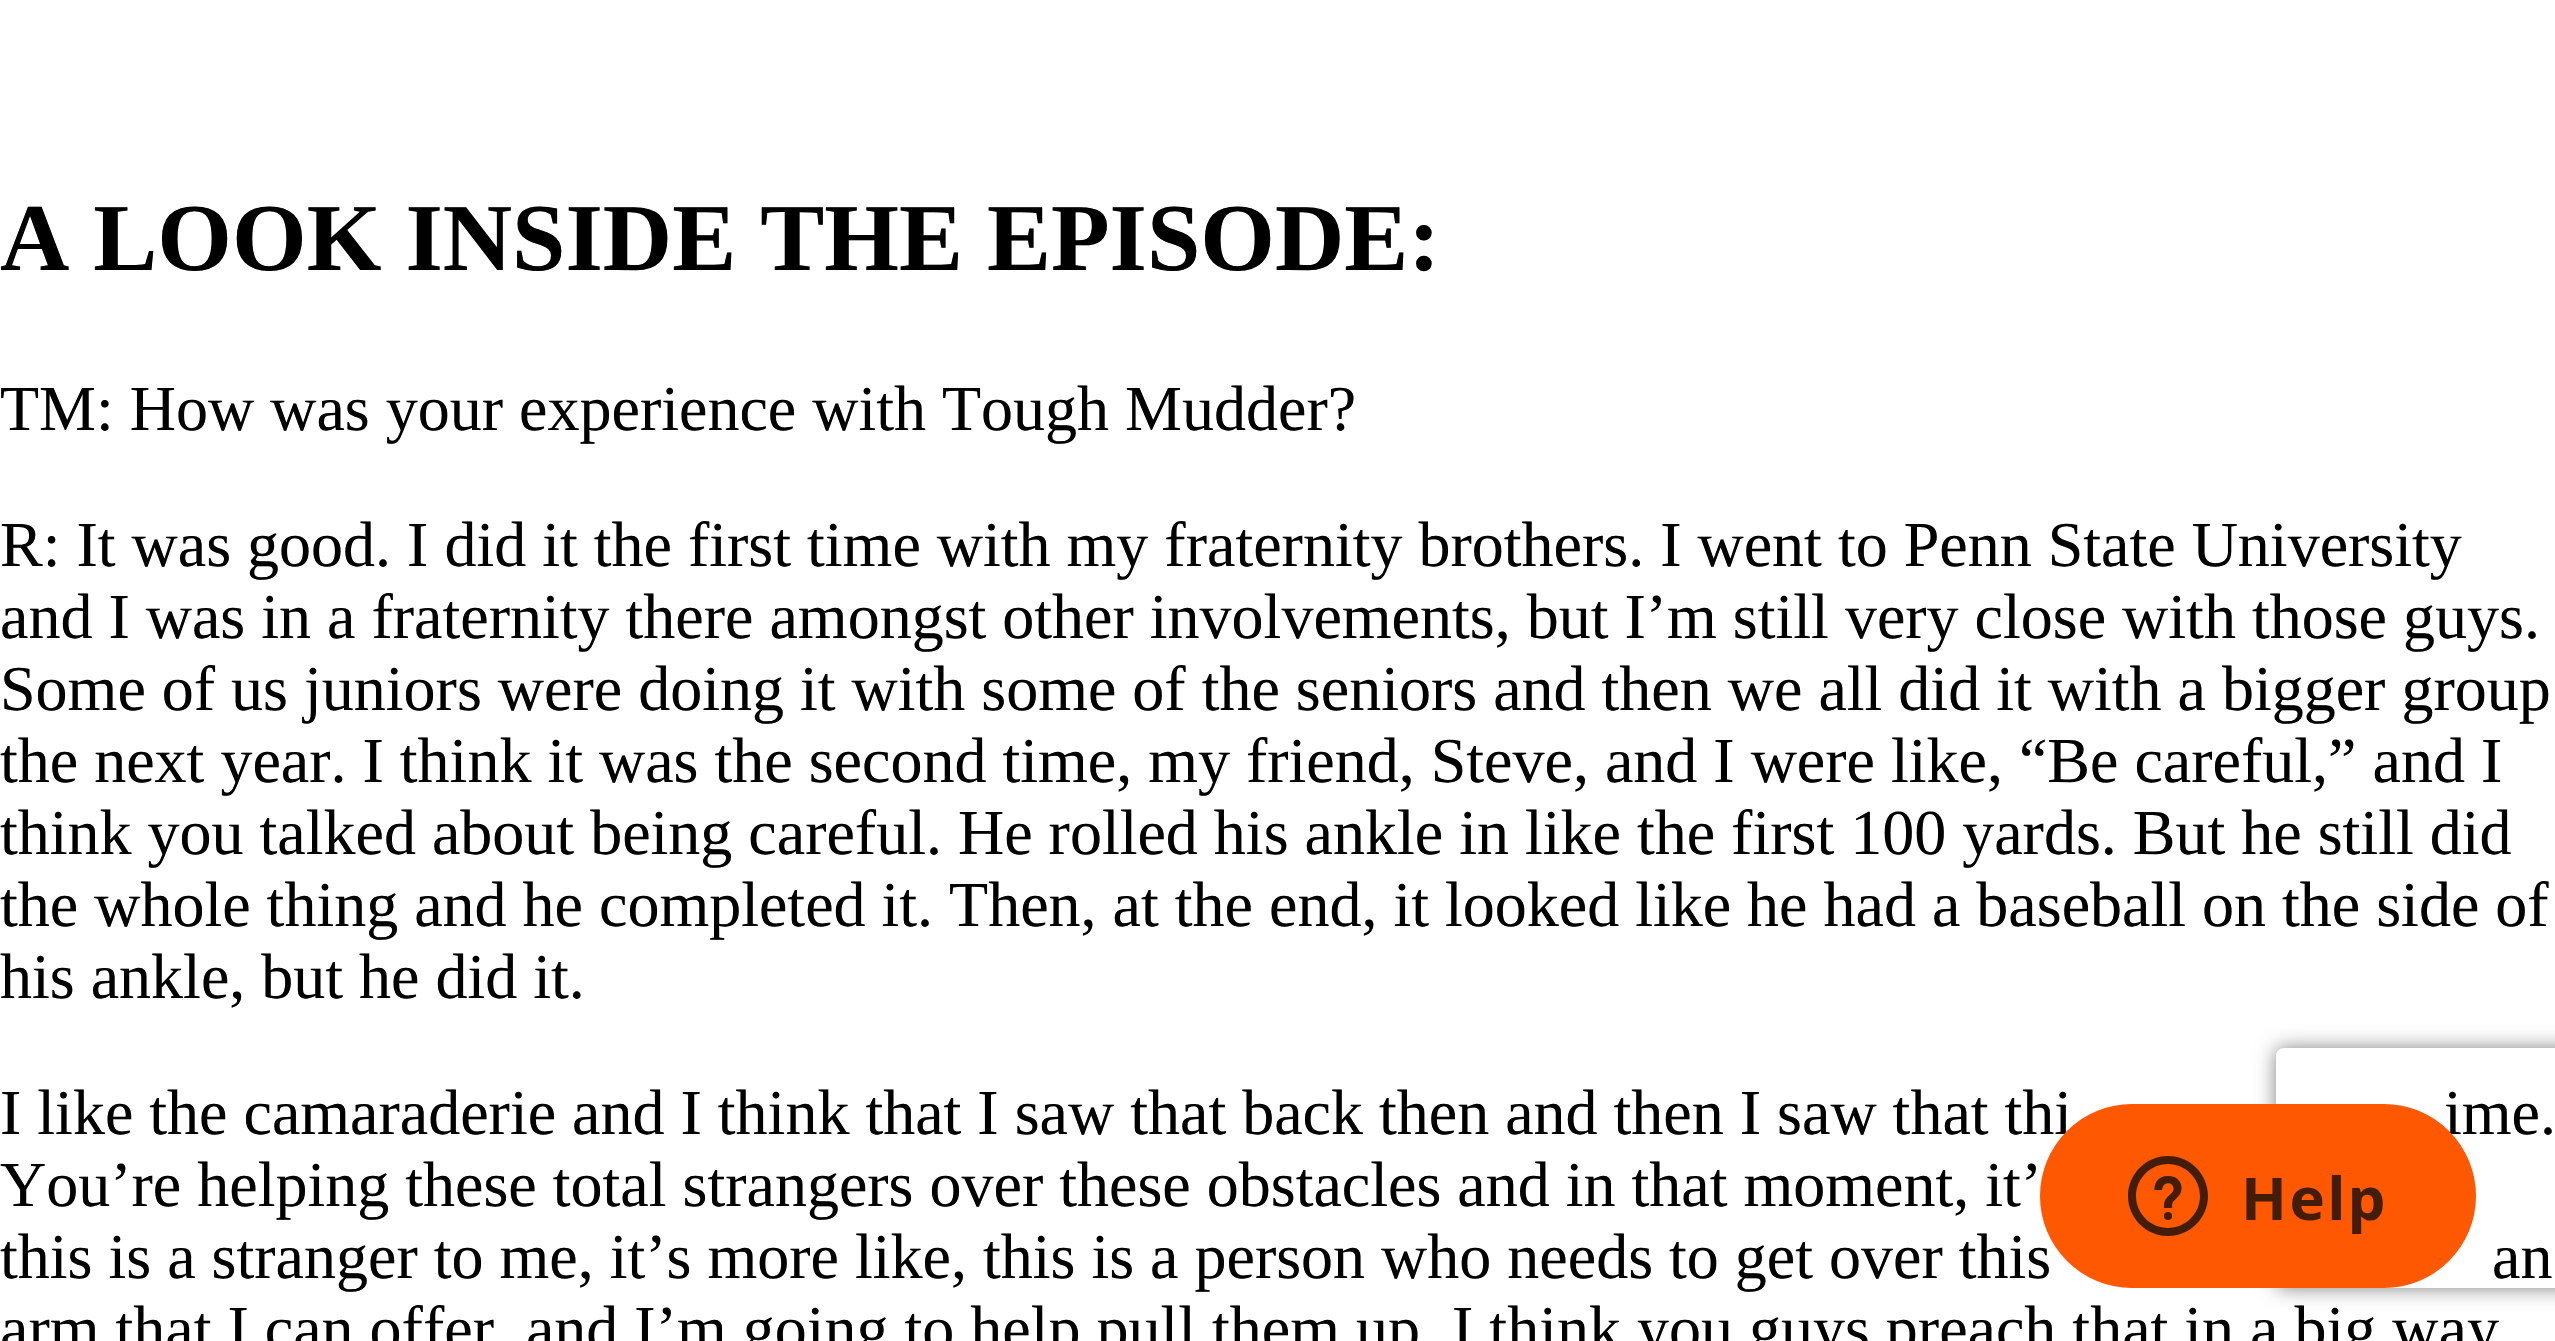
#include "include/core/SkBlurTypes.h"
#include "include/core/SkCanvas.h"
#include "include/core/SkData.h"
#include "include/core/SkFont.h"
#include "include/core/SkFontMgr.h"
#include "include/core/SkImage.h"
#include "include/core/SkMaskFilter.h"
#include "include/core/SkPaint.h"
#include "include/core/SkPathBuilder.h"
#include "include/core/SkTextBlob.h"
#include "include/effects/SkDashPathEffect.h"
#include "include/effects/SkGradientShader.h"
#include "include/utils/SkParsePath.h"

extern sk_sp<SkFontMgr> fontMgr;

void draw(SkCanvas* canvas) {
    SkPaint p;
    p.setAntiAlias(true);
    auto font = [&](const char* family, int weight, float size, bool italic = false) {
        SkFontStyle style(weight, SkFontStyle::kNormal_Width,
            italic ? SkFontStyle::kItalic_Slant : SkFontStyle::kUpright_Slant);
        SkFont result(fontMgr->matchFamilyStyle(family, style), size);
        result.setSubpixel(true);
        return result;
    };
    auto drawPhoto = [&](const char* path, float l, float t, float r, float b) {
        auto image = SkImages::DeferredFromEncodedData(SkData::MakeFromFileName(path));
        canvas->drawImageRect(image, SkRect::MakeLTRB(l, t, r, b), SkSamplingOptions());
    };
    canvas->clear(0xFFFFFFFF);
    auto font1 = font("Liberation Serif", 700, 96);
    p.setColor(0xFF000000);
    canvas->drawString("A LOOK INSIDE THE EPISODE:", 0, 270, font1, p);
    auto font2 = font("Liberation Serif", 400, 64);
    {
        const struct { const char* s; float x, y; } items[] = {
            {"TM: How was your experience with Tough Mudder?", 0, 430},
            {"R: It was good. I did it the first time with my fraternity brothers. I went to Penn State University", 0, 566},
            {"and I was in a fraternity there amongst other involvements, but I’m still very close with those guys.", 0, 638},
            {"Some of us juniors were doing it with some of the seniors and then we all did it with a bigger group", 0, 710},
            {"the next year. I think it was the second time, my friend, Steve, and I were like, “Be careful,” and I", 0, 782},
            {"think you talked about being careful. He rolled his ankle in like the first 100 yards. But he still did", 0, 854},
            {"the whole thing and he completed it. Then, at the end, it looked like he had a baseball on the side of", 0, 926},
            {"his ankle, but he did it.", 0, 998},
            {"I like the camaraderie and I think that I saw that back then and then I saw that thi", 0, 1134},
            {"ime.", 2444, 1134},
            {"You’re helping these total strangers over these obstacles and in that moment, it’", 0, 1206},
            {"this is a stranger to me, it’s more like, this is a person who needs to get over this", 0, 1278},
            {"an", 2492, 1278},
            {"arm that I can offer, and I’m going to help pull them up. I think you guys preach that in a big way", 0, 1350},
        };
        for (auto [s, x, y] : items) {
            canvas->drawString(s, x, y, font2, p);
        }
    }
    canvas->save();
    canvas->clipPath(SkPathBuilder(SkPathFillType::kEvenOdd).moveTo(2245, 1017).lineTo(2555, 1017).lineTo(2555, 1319).lineTo(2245, 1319).close().moveTo(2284, 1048).lineTo(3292, 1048).cubicTo(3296.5f, 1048, 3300, 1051.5f, 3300, 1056).lineTo(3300, 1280).cubicTo(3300, 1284.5f, 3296.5f, 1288, 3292, 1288).lineTo(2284, 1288).cubicTo(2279.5f, 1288, 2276, 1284.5f, 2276, 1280).lineTo(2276, 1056).cubicTo(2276, 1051.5f, 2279.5f, 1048, 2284, 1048).close().detach(), true);
    p.setColor(0xFF808080);
    p.setMaskFilter(SkMaskFilter::MakeBlur(kNormal_SkBlurStyle, 10));
    canvas->drawRoundRect(SkRect::MakeLTRB(2276, 1048, 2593, 1288), 8, 8, p);
    p.setMaskFilter(nullptr);
    canvas->restore();
    drawPhoto("media/1.png", 2040, 1104, 2476, 1288);
}
